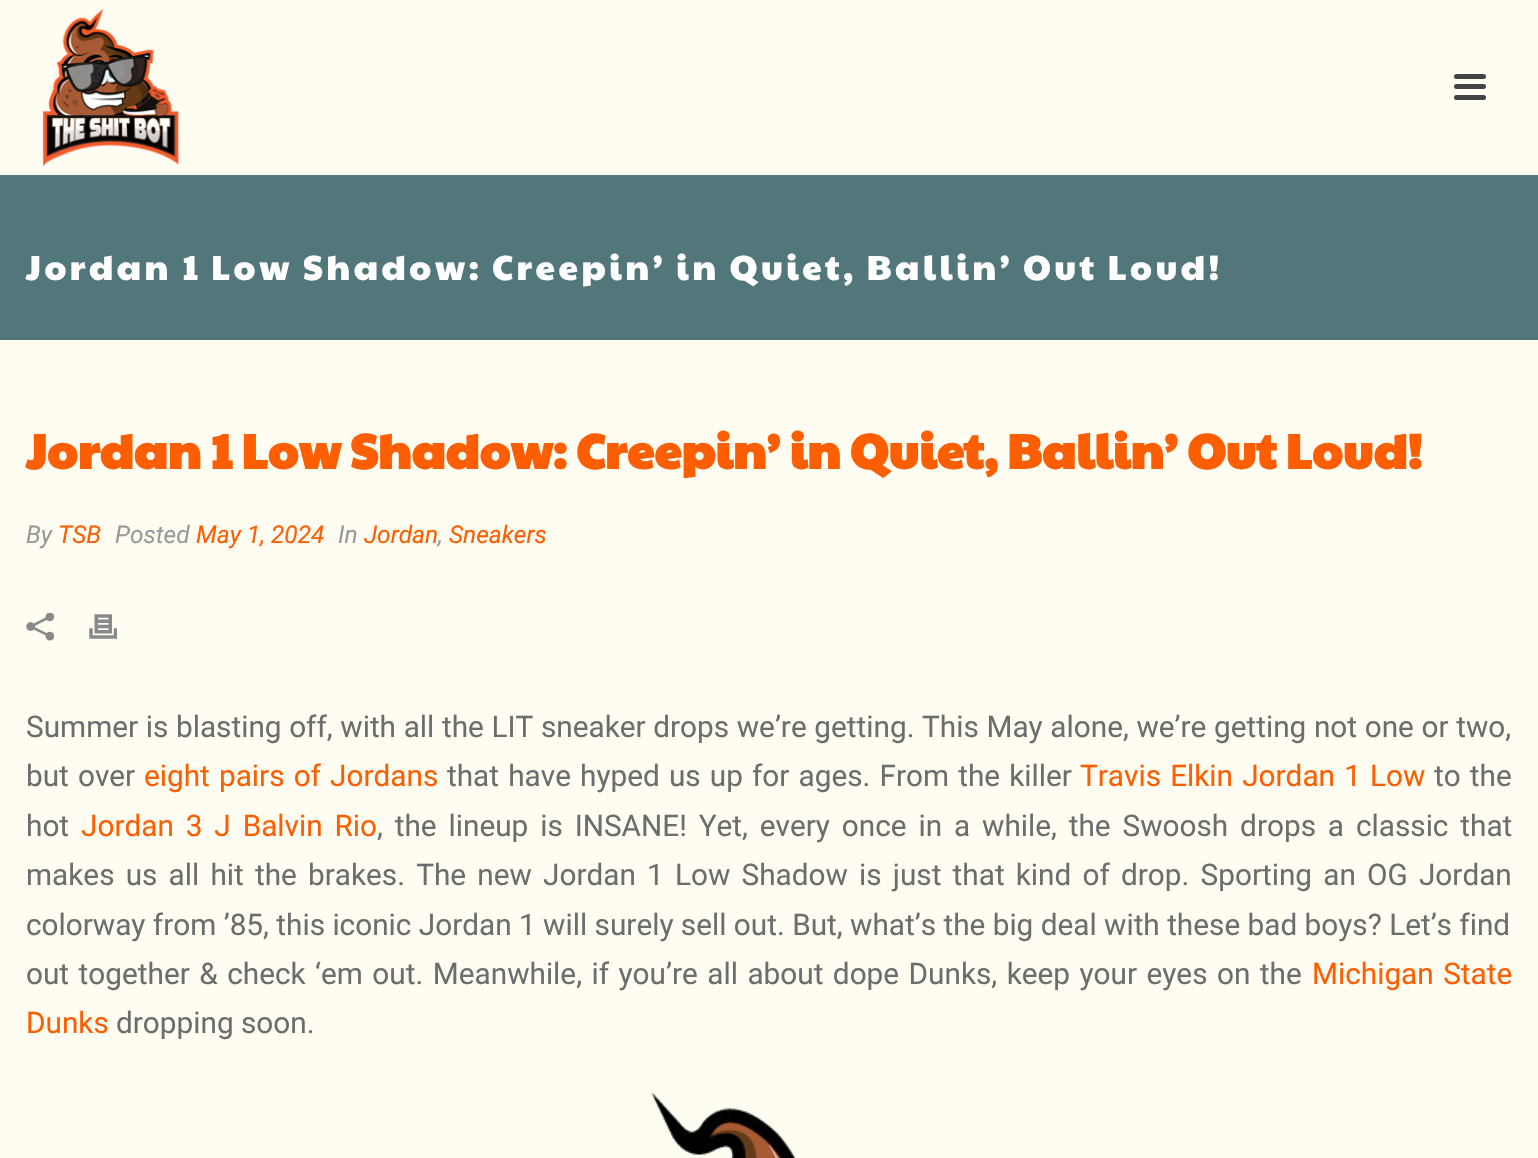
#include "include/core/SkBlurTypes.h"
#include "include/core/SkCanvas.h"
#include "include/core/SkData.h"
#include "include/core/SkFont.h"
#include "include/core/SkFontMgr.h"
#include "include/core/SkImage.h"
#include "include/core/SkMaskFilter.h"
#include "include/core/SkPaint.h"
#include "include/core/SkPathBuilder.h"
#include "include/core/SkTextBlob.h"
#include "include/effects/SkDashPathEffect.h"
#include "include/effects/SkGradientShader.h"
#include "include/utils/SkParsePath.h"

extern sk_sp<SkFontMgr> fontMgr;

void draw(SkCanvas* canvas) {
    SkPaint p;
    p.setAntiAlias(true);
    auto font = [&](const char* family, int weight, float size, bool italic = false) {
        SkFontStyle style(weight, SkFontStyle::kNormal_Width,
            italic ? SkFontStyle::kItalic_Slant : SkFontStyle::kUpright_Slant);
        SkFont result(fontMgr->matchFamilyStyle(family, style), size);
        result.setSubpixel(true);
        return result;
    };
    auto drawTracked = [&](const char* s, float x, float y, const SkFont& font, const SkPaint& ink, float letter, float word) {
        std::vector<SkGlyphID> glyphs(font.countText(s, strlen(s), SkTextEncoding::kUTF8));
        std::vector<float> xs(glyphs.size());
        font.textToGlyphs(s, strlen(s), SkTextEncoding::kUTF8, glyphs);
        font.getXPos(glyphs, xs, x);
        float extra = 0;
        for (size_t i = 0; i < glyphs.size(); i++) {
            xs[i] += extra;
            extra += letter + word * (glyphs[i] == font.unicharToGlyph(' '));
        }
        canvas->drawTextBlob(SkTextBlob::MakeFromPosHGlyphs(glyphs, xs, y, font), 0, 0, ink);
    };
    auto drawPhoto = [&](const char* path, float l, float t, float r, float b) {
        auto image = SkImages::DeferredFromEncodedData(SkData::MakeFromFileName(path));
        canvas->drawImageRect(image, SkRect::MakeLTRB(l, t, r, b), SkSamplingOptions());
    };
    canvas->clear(0xFFFFFCF2);
    drawPhoto("media/1.png", 42, 8, 179, 167);
    p.setColor(0xFF444444);
    canvas->drawRoundRect(SkRect::MakeLTRB(1454, 74, 1486, 79), 2.5f, 2.5f, p);
    canvas->drawRoundRect(SkRect::MakeLTRB(1454, 84, 1486, 89), 2.5f, 2.5f, p);
    canvas->drawRoundRect(SkRect::MakeLTRB(1454, 95, 1486, 100), 2.5f, 2.5f, p);
    p.setColor(0xFF52777B);
    canvas->drawRect(SkRect::MakeLTRB(0, 175, 1538, 340), p);
    auto font1 = font("Paytone One", 400, 35);
    p.setColor(0xFFFFFFFF);
    drawTracked("Jordan 1 Low Shadow: Creepin’ in Quiet, Ballin’ Out Loud!", 26, 280, font1, p, 3.5f, 0);
    auto font2 = font("Paytone One", 700, 49);
    p.setColor(0xFFFD5E01);
    canvas->drawString("Jordan 1 Low Shadow: Creepin’ in Quiet, Ballin’ Out Loud!", 26, 469, font2, p);
    auto font3 = font("Roboto", 400, 24.5f, true);
    p.setColor(0xFF999999);
    canvas->drawString("By", 26, 543, font3, p);
    p.setColor(0xFFFD5E01);
    canvas->drawString("TSB", 58, 543, font3, p);
    p.setColor(0xFF999999);
    canvas->drawString("Posted", 115, 543, font3, p);
    p.setColor(0xFFFD5E01);
    canvas->drawString("May 1, 2024", 196, 543, font3, p);
    p.setColor(0xFF999999);
    canvas->drawString("In", 338, 543, font3, p);
    p.setColor(0xFFFD5E01);
    canvas->drawString("Jordan", 364, 543, font3, p);
    p.setColor(0xFF999999);
    canvas->drawString(",", 438, 543, font3, p);
    p.setColor(0xFFFD5E01);
    canvas->drawString("Sneakers", 449, 543, font3, p);
    drawPhoto("media/2.png", 26, 613, 54, 641);
    drawPhoto("media/3.png", 89, 614, 117, 639);
    auto font4 = font("Roboto", 400, 29.75f);
    p.setColor(0xFF6D6D6D);
    drawTracked("Summer is blasting off, with all the LIT sneaker drops we’re getting. This May alone, we’re getting not one or two,", 26, 737, font4, p, 0, 0.25f);
    drawTracked("but over", 26, 786, font4, p, 0, 1.75f);
    p.setColor(0xFFFD5E01);
    drawTracked("eight pairs of Jordans", 144, 786, font4, p, 0, 1.75f);
    p.setColor(0xFF6D6D6D);
    drawTracked("that have hyped us up for ages. From the killer", 447, 786, font4, p, 0, 1.75f);
    p.setColor(0xFFFD5E01);
    drawTracked("Travis Elkin Jordan 1 Low", 1080, 786, font4, p, 0, 1.75f);
    p.setColor(0xFF6D6D6D);
    drawTracked("to the", 1434, 786, font4, p, 0, 1.75f);
    canvas->drawString("hot", 26, 836, font4, p);
    p.setColor(0xFFFD5E01);
    drawTracked("Jordan 3 J Balvin Rio", 81, 836, font4, p, 0, 4.5f);
    p.setColor(0xFF6D6D6D);
    drawTracked(", the lineup is INSANE! Yet, every once in a while, the Swoosh drops a classic that", 377, 836, font4, p, 0, 4.5f);
    drawTracked("makes us all hit the brakes. The new Jordan 1 Low Shadow is just that kind of drop. Sporting an OG Jordan", 26, 885, font4, p, 0, 3.8f);
    canvas->drawString("colorway from ’85, this iconic Jordan 1 will surely sell out. But, what’s the big deal with these bad boys? Let’s find", 26, 935, font4, p);
    drawTracked("out together & check ‘em out. Meanwhile, if you’re all about dope Dunks, keep your eyes on the", 26, 984, font4, p, 0, 2.1f);
    p.setColor(0xFFFD5E01);
    drawTracked("Michigan State", 1312, 984, font4, p, 0, 2.1f);
    canvas->drawString("Dunks", 26, 1033, font4, p);
    p.setColor(0xFF6D6D6D);
    canvas->drawString("dropping soon.", 116, 1033, font4, p);
    drawPhoto("media/4.png", 646, 1085, 799, 1158);
}
